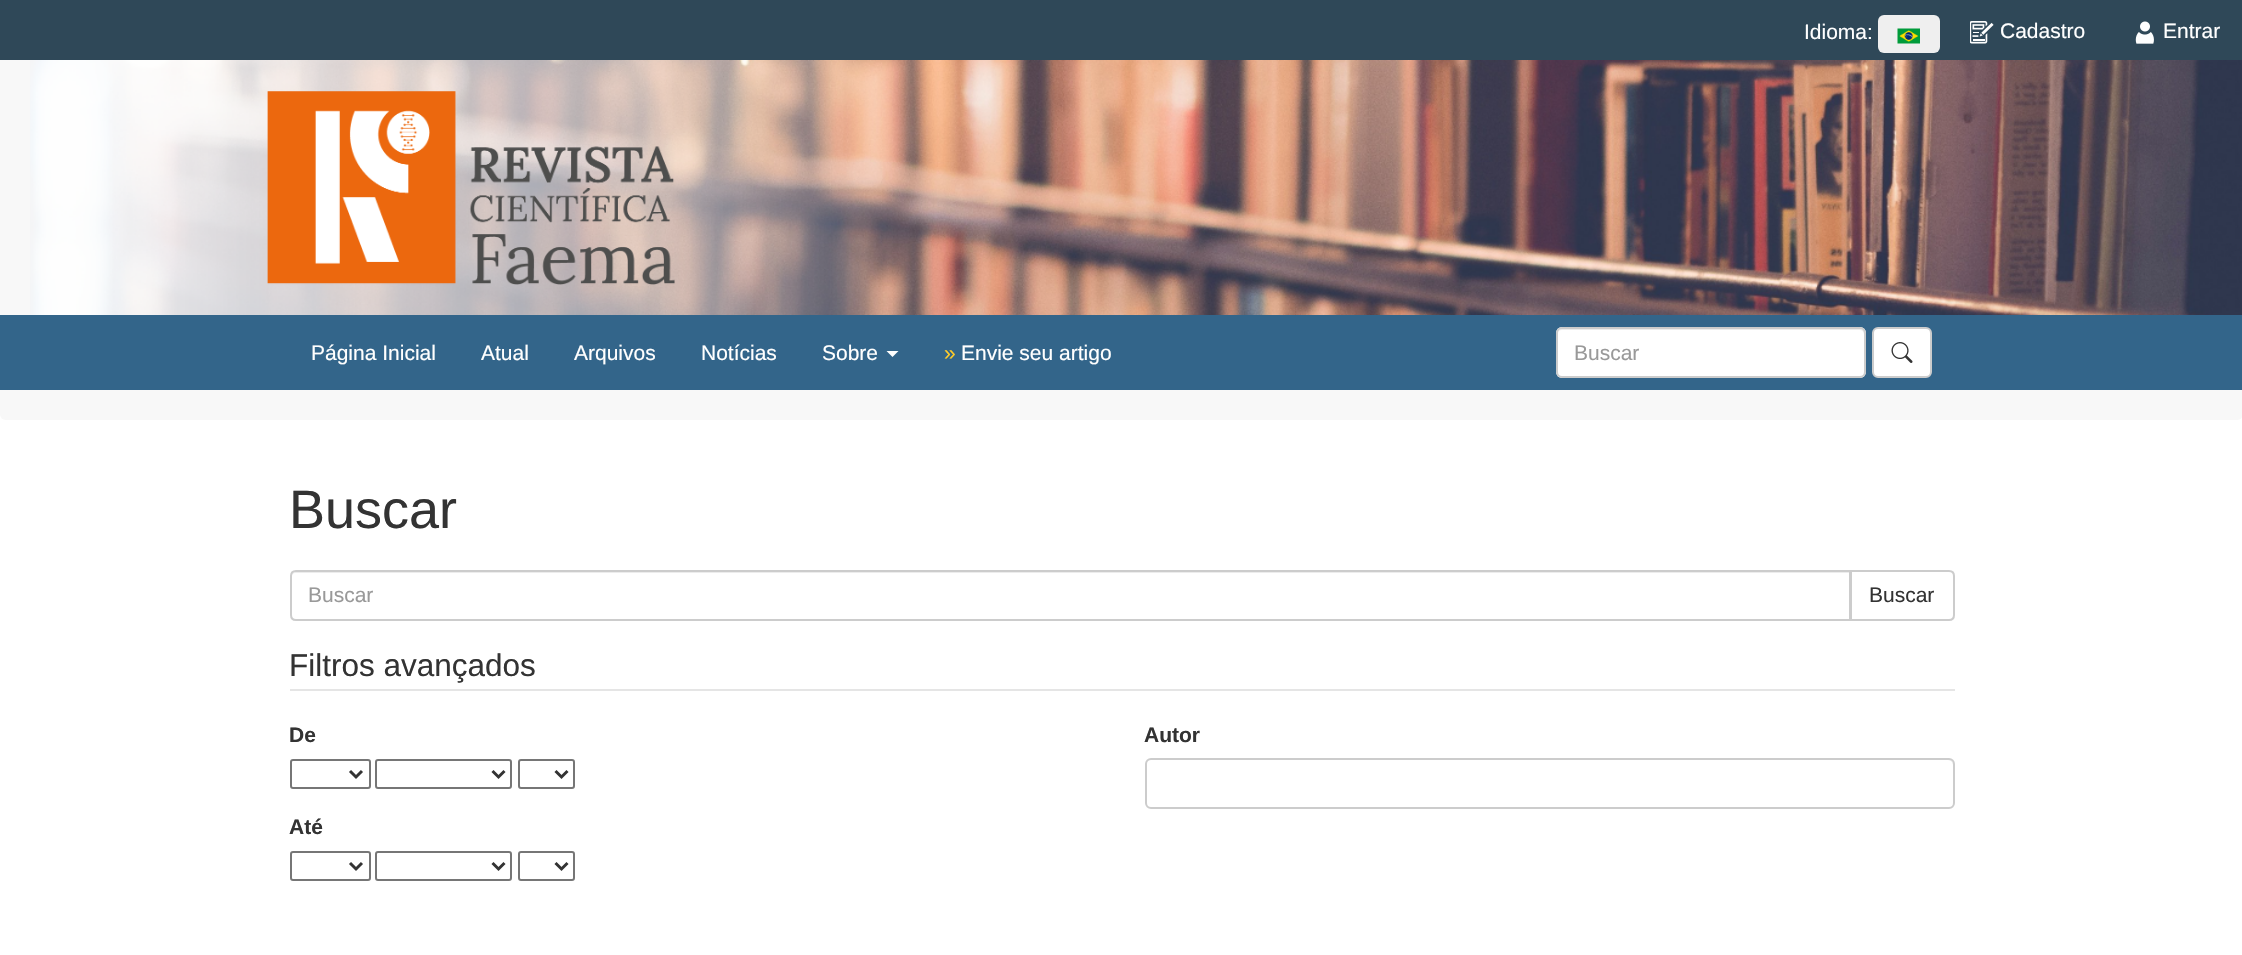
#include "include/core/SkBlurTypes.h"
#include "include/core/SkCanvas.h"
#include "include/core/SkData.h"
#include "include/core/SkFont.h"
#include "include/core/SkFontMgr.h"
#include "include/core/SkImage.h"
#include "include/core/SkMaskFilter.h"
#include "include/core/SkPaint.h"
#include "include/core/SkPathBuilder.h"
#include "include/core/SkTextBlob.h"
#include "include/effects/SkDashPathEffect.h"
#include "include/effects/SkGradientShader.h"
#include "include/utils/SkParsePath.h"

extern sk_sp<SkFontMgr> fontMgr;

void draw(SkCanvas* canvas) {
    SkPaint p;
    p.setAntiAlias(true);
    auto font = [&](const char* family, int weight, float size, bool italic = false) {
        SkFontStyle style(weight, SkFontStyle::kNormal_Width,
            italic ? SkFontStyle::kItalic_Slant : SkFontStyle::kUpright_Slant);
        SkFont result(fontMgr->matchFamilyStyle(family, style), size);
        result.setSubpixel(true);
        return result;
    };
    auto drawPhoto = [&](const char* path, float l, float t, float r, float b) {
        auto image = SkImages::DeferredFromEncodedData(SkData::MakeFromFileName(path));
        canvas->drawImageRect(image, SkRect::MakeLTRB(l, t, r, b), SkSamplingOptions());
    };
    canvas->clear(0xFFFFFFFF);
    p.setColor(0xFFF8F8F8);
    canvas->drawRoundRect(SkRect::MakeLTRB(0, 0, 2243, 420), 6, 6, p);
    p.setColor(0xFF2F4858);
    canvas->drawRect(SkRect::MakeLTRB(0, 0, 2242, 60), p);
    auto font1 = font("Liberation Sans", 400, 21);
    p.setColor(0xFFFFFFFF);
    canvas->drawString("Idioma:", 1804, 39, font1, p);
    p.setColor(0xFFEFEFEF);
    canvas->drawRoundRect(SkRect::MakeLTRB(1878, 15, 1940, 53), 6, 6, p);
    drawPhoto("media/1.png", 1897, 28, 1920, 44);
    drawPhoto("media/2.png", 1970, 21, 1994, 44);
    p.setColor(0xFFFFFFFF);
    canvas->drawString("Cadastro", 2000, 38, font1, p);
    drawPhoto("media/3.png", 2135, 21, 2154, 44);
    canvas->drawString("Entrar", 2163, 38, font1, p);
    drawPhoto("media/4.png", 30, 60, 2242, 315);
    drawPhoto("media/5.png", 267, 91, 675, 285);
    p.setColor(0xFF33658A);
    canvas->drawRect(SkRect::MakeLTRB(0, 315, 2242, 390), p);
    p.setColor(0xFFFFFFFF);
    {
        const struct { const char* s; float x, y; } items[] = {
            {"Página Inicial", 311, 360},
            {"Atual", 481, 360},
            {"Arquivos", 574, 360},
            {"Notícias", 701, 360},
            {"Sobre", 822, 360},
        };
        for (auto [s, x, y] : items) {
            canvas->drawString(s, x, y, font1, p);
        }
    }
    canvas->drawPath(SkPathBuilder().moveTo(886.5f, 351).lineTo(898.5f, 351).lineTo(892.5f, 357).close().detach(), p);
    p.setColor(0xFFFFCC29);
    canvas->drawString("»", 944, 360, font1, p);
    p.setColor(0xFFFFFFFF);
    canvas->drawString("Envie seu artigo", 961, 360, font1, p);
    canvas->drawRoundRect(SkRect::MakeLTRB(1556, 327, 1866, 378), 6, 6, p);
    p.setColor(0xFFECECEC);
    canvas->drawPath(SkPathBuilder().moveTo(1562, 330).lineTo(1860, 330).cubicTo(1862, 330, 1864, 332, 1864, 334).lineTo(1864, 375).cubicTo(1865, 374, 1865, 373, 1865, 372).lineTo(1865, 334).cubicTo(1865, 331, 1863, 329, 1860, 329).lineTo(1562, 329).cubicTo(1559, 329, 1557, 331, 1557, 334).cubicTo(1557, 332, 1559, 330, 1562, 330).close().detach(), p);
    p.setStyle(SkPaint::kStroke_Style);
    p.setStrokeWidth(2);
    p.setColor(0xFFCCCCCC);
    canvas->drawRoundRect(SkRect::MakeLTRB(1557, 328, 1865, 377), 5, 5, p);
    p.setStyle(SkPaint::kFill_Style);
    p.setColor(0xFF999999);
    canvas->drawString("Buscar", 1574, 360, font1, p);
    p.setColor(0xFFFFFFFF);
    canvas->drawRoundRect(SkRect::MakeLTRB(1873, 328, 1931, 377), 5, 5, p);
    p.setStyle(SkPaint::kStroke_Style);
    p.setColor(0xFFCCCCCC);
    canvas->drawRoundRect(SkRect::MakeLTRB(1873, 328, 1931, 377), 5, 5, p);
    drawPhoto("media/6.png", 1891, 342, 1913, 363);
    auto font2 = font("Liberation Sans", 400, 54);
    p.setStyle(SkPaint::kFill_Style);
    p.setColor(0xFF333333);
    canvas->drawString("Buscar", 289, 528, font2, p);
    p.setColor(0xFFECECEC);
    canvas->drawPath(SkPathBuilder().moveTo(296, 573).lineTo(1850, 573).lineTo(1850, 572).lineTo(296, 572).cubicTo(293, 572, 291, 575, 291, 578).cubicTo(291, 575, 293, 573, 296, 573).close().detach(), p);
    p.setStyle(SkPaint::kStroke_Style);
    p.setColor(0xFFCCCCCC);
    canvas->drawPath(SkPathBuilder().moveTo(296, 571).lineTo(1850, 571).lineTo(1850, 620).lineTo(296, 620).cubicTo(293, 620, 291, 618, 291, 615).lineTo(291, 576).cubicTo(291, 573, 293, 571, 296, 571).close().detach(), p);
    p.setStyle(SkPaint::kFill_Style);
    p.setColor(0xFF999999);
    canvas->drawString("Buscar", 308, 602, font1, p);
    p.setColor(0xFFFFFFFF);
    canvas->drawPath(SkPathBuilder().moveTo(1851, 571).lineTo(1949, 571).cubicTo(1952, 571, 1954, 573, 1954, 576).lineTo(1954, 615).cubicTo(1954, 618, 1952, 620, 1949, 620).lineTo(1851, 620).close().detach(), p);
    p.setStyle(SkPaint::kStroke_Style);
    p.setColor(0xFFCCCCCC);
    canvas->drawPath(SkPathBuilder().moveTo(1851, 571).lineTo(1949, 571).cubicTo(1952, 571, 1954, 573, 1954, 576).lineTo(1954, 615).cubicTo(1954, 618, 1952, 620, 1949, 620).lineTo(1851, 620).close().detach(), p);
    p.setStyle(SkPaint::kFill_Style);
    p.setColor(0xFF333333);
    canvas->drawString("Buscar", 1869, 602, font1, p);
    p.setColor(0xFFE5E5E5);
    canvas->drawRect(SkRect::MakeLTRB(290, 689, 1955, 691), p);
    auto font3 = font("Liberation Sans", 400, 31.5f);
    p.setColor(0xFF333333);
    canvas->drawString("Filtros avançados", 289, 676, font3, p);
    auto font4 = font("Liberation Sans", 700, 21);
    canvas->drawString("De", 289, 742, font4, p);
    p.setStyle(SkPaint::kStroke_Style);
    p.setColor(0xFF767676);
    canvas->drawRoundRect(SkRect::MakeLTRB(291, 760, 370, 788), 2, 2, p);
    p.setStrokeWidth(3);
    p.setColor(0xFF333333);
    canvas->drawPath(SkPathBuilder().moveTo(350, 771).lineTo(356, 777).lineTo(362, 771).detach(), p);
    p.setStrokeWidth(2);
    p.setColor(0xFF767676);
    canvas->drawRoundRect(SkRect::MakeLTRB(376, 760, 511, 788), 2, 2, p);
    p.setStrokeWidth(3);
    p.setColor(0xFF333333);
    canvas->drawPath(SkPathBuilder().moveTo(492.5f, 771).lineTo(498.5f, 777).lineTo(504.5f, 771).detach(), p);
    p.setStrokeWidth(2);
    p.setColor(0xFF767676);
    canvas->drawRoundRect(SkRect::MakeLTRB(519, 760, 574, 788), 2, 2, p);
    p.setStrokeWidth(3);
    p.setColor(0xFF333333);
    canvas->drawPath(SkPathBuilder().moveTo(555.5f, 771).lineTo(561.5f, 777).lineTo(567.5f, 771).detach(), p);
    p.setStyle(SkPaint::kFill_Style);
    canvas->drawString("Até", 289, 834, font4, p);
    p.setStyle(SkPaint::kStroke_Style);
    p.setStrokeWidth(2);
    p.setColor(0xFF767676);
    canvas->drawRoundRect(SkRect::MakeLTRB(291, 852, 370, 880), 2, 2, p);
    p.setStrokeWidth(3);
    p.setColor(0xFF333333);
    canvas->drawPath(SkPathBuilder().moveTo(350, 863).lineTo(356, 869).lineTo(362, 863).detach(), p);
    p.setStrokeWidth(2);
    p.setColor(0xFF767676);
    canvas->drawRoundRect(SkRect::MakeLTRB(376, 852, 511, 880), 2, 2, p);
    p.setStrokeWidth(3);
    p.setColor(0xFF333333);
    canvas->drawPath(SkPathBuilder().moveTo(492.5f, 863).lineTo(498.5f, 869).lineTo(504.5f, 863).detach(), p);
    p.setStrokeWidth(2);
    p.setColor(0xFF767676);
    canvas->drawRoundRect(SkRect::MakeLTRB(519, 852, 574, 880), 2, 2, p);
    p.setStrokeWidth(3);
    p.setColor(0xFF333333);
    canvas->drawPath(SkPathBuilder().moveTo(555.5f, 863).lineTo(561.5f, 869).lineTo(567.5f, 863).detach(), p);
    p.setStyle(SkPaint::kFill_Style);
    canvas->drawString("Autor", 1144, 742, font4, p);
    p.setColor(0xFFECECEC);
    canvas->drawPath(SkPathBuilder().moveTo(1150, 760).lineTo(1948, 760).cubicTo(1951, 760, 1953, 763, 1953, 765).lineTo(1953, 764).cubicTo(1953, 761, 1951, 759, 1948, 759).lineTo(1151, 759).cubicTo(1148, 759, 1146, 761, 1146, 764).lineTo(1146, 765).cubicTo(1146, 763, 1148, 760, 1150, 760).close().detach(), p);
    p.setStyle(SkPaint::kStroke_Style);
    p.setStrokeWidth(2);
    p.setColor(0xFFCCCCCC);
    canvas->drawRoundRect(SkRect::MakeLTRB(1146, 759, 1954, 808), 5, 5, p);
}
